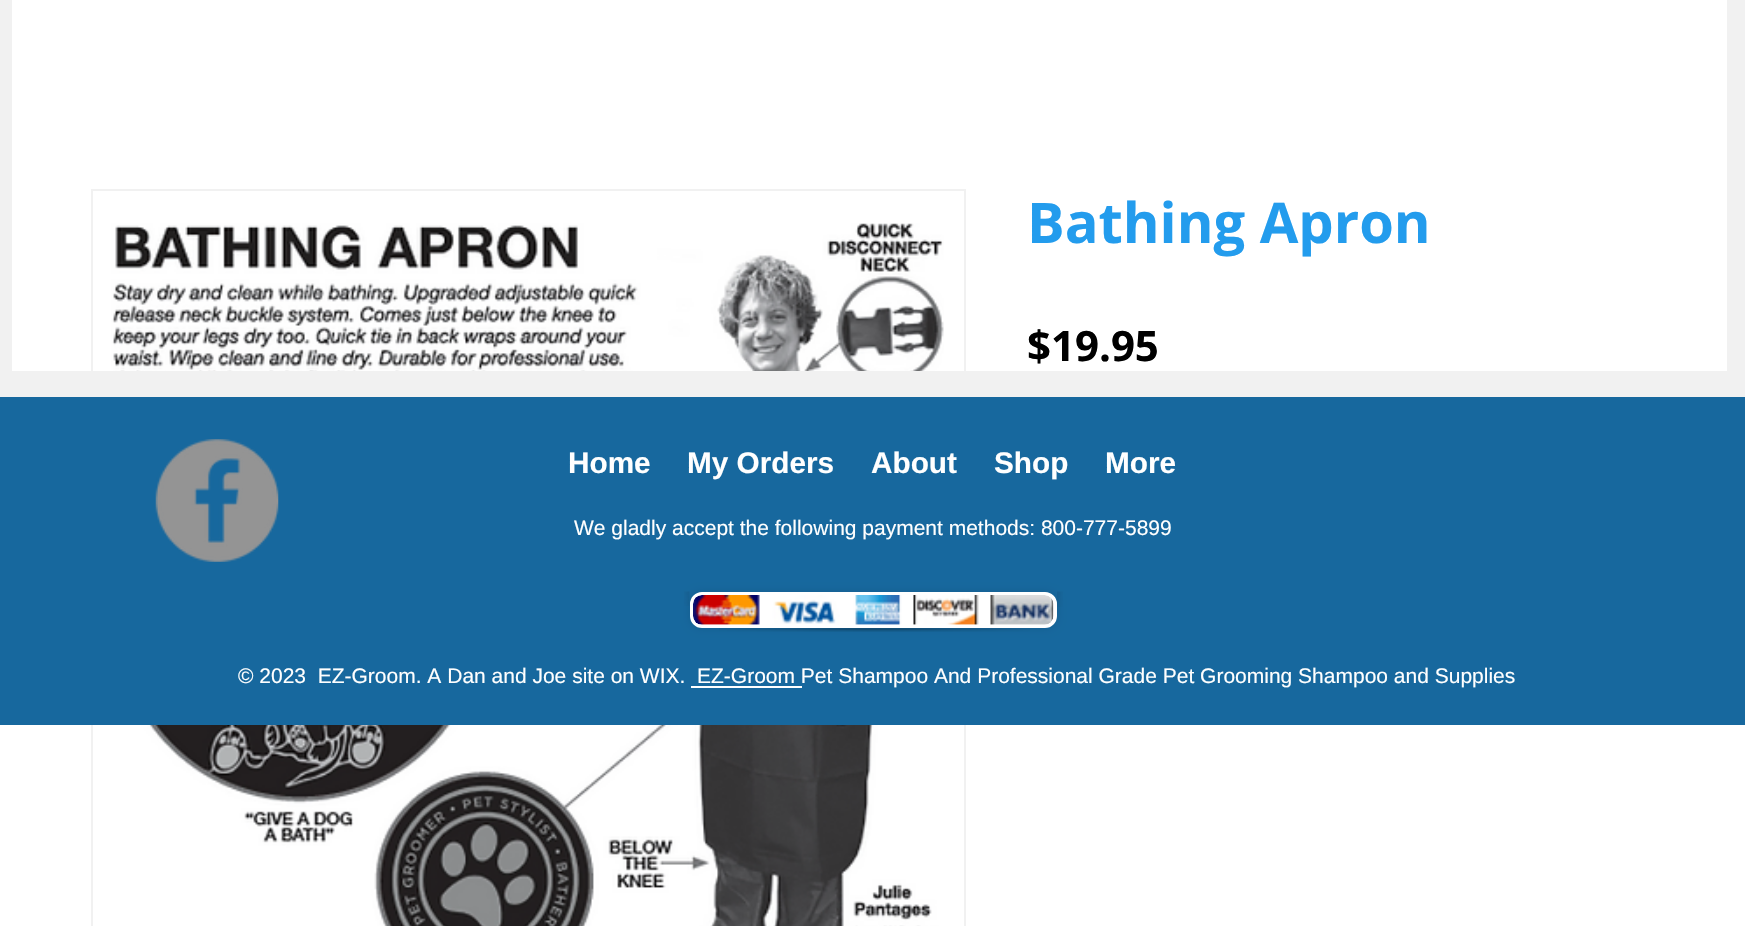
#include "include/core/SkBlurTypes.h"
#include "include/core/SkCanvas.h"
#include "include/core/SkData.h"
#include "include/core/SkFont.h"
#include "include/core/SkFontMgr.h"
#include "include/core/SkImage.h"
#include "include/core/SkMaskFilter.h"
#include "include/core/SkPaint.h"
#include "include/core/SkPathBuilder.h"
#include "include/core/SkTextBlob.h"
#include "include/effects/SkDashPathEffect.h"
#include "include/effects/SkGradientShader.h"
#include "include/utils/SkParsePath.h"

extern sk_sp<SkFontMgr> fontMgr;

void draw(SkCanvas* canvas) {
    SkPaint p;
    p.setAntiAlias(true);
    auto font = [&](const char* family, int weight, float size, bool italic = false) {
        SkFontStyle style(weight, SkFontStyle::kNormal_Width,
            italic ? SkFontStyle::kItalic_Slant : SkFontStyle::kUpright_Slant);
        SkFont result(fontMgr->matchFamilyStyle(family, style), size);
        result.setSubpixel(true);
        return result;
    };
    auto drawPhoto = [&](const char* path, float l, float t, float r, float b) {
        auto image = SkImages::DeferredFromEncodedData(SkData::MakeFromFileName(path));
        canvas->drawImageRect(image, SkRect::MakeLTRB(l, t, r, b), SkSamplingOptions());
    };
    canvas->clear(0xFFFFFFFF);
    p.setColor(0xFFF1F1F1);
    canvas->drawRect(SkRect::MakeLTRB(0, 0, 1745, 371), p);
    p.setColor(0xFFFFFFFF);
    canvas->drawRect(SkRect::MakeLTRB(12, 0, 1727, 371), p);
    p.setStyle(SkPaint::kStroke_Style);
    p.setStrokeWidth(2);
    p.setColor(0xFFF1F1F1);
    canvas->drawRect(SkRect::MakeLTRB(92, 190, 965, 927), p);
    drawPhoto("media/1.png", 111, 223, 944, 926);
    auto font1 = font("Open Sans", 700, 56);
    p.setStyle(SkPaint::kFill_Style);
    p.setColor(0xFF239CED);
    canvas->drawString("Bathing Apron", 1027, 243, font1, p);
    auto font2 = font("Open Sans", 700, 42);
    p.setColor(0xFF000000);
    canvas->drawString("$19.95", 1027, 361, font2, p);
    p.setColor(0xFF17689E);
    canvas->drawRect(SkRect::MakeLTRB(0, 397, 1745, 725), p);
    p.setColor(0xFFF1F1F1);
    canvas->drawRect(SkRect::MakeLTRB(0, 371, 1745, 397), p);
    drawPhoto("media/2.png", 155, 439, 279, 562);
    auto font3 = font("Liberation Sans", 700, 29.75f);
    p.setColor(0xFFFFFFFF);
    {
        const struct { const char* s; float x, y; } items[] = {
            {"Home", 568, 473},
            {"My Orders", 687, 473},
            {"About", 871, 473},
            {"Shop", 994, 473},
            {"More", 1105, 473},
        };
        for (auto [s, x, y] : items) {
            canvas->drawString(s, x, y, font3, p);
        }
    }
    auto font4 = font("Liberation Sans", 400, 21);
    canvas->drawString("We gladly accept the following payment methods: 800-777-5899", 574, 535, font4, p);
    p.setColor(0x1A000000);
    p.setMaskFilter(SkMaskFilter::MakeBlur(kNormal_SkBlurStyle, 4.5f));
    canvas->drawRoundRect(SkRect::MakeLTRB(690, 592, 1057, 628), 12, 12, p);
    p.setMaskFilter(nullptr);
    p.setColor(0xFFFFFFFF);
    canvas->drawRoundRect(SkRect::MakeLTRB(692, 594, 1055, 626), 10, 10, p);
    p.setStyle(SkPaint::kStroke_Style);
    p.setStrokeWidth(4);
    canvas->drawRoundRect(SkRect::MakeLTRB(692, 594, 1055, 626), 10, 10, p);
    drawPhoto("media/3.png", 693, 595, 1054, 625);
    drawPhoto("media/4.png", 719, 628, 1030, 632);
    drawPhoto("media/5.png", 684, 591, 690, 606);
    drawPhoto("media/6.png", 1057, 591, 1063, 607);
    p.setStyle(SkPaint::kFill_Style);
    canvas->drawString("© 2023  EZ-Groom. A Dan and Joe site on WIX.", 238, 683, font4, p);
    canvas->drawRect(SkRect::MakeLTRB(691, 686, 802, 688), p);
    canvas->drawString("EZ-Groom Pet Shampoo And Professional Grade Pet Grooming Shampoo and Supplies", 697, 683, font4, p);
}
